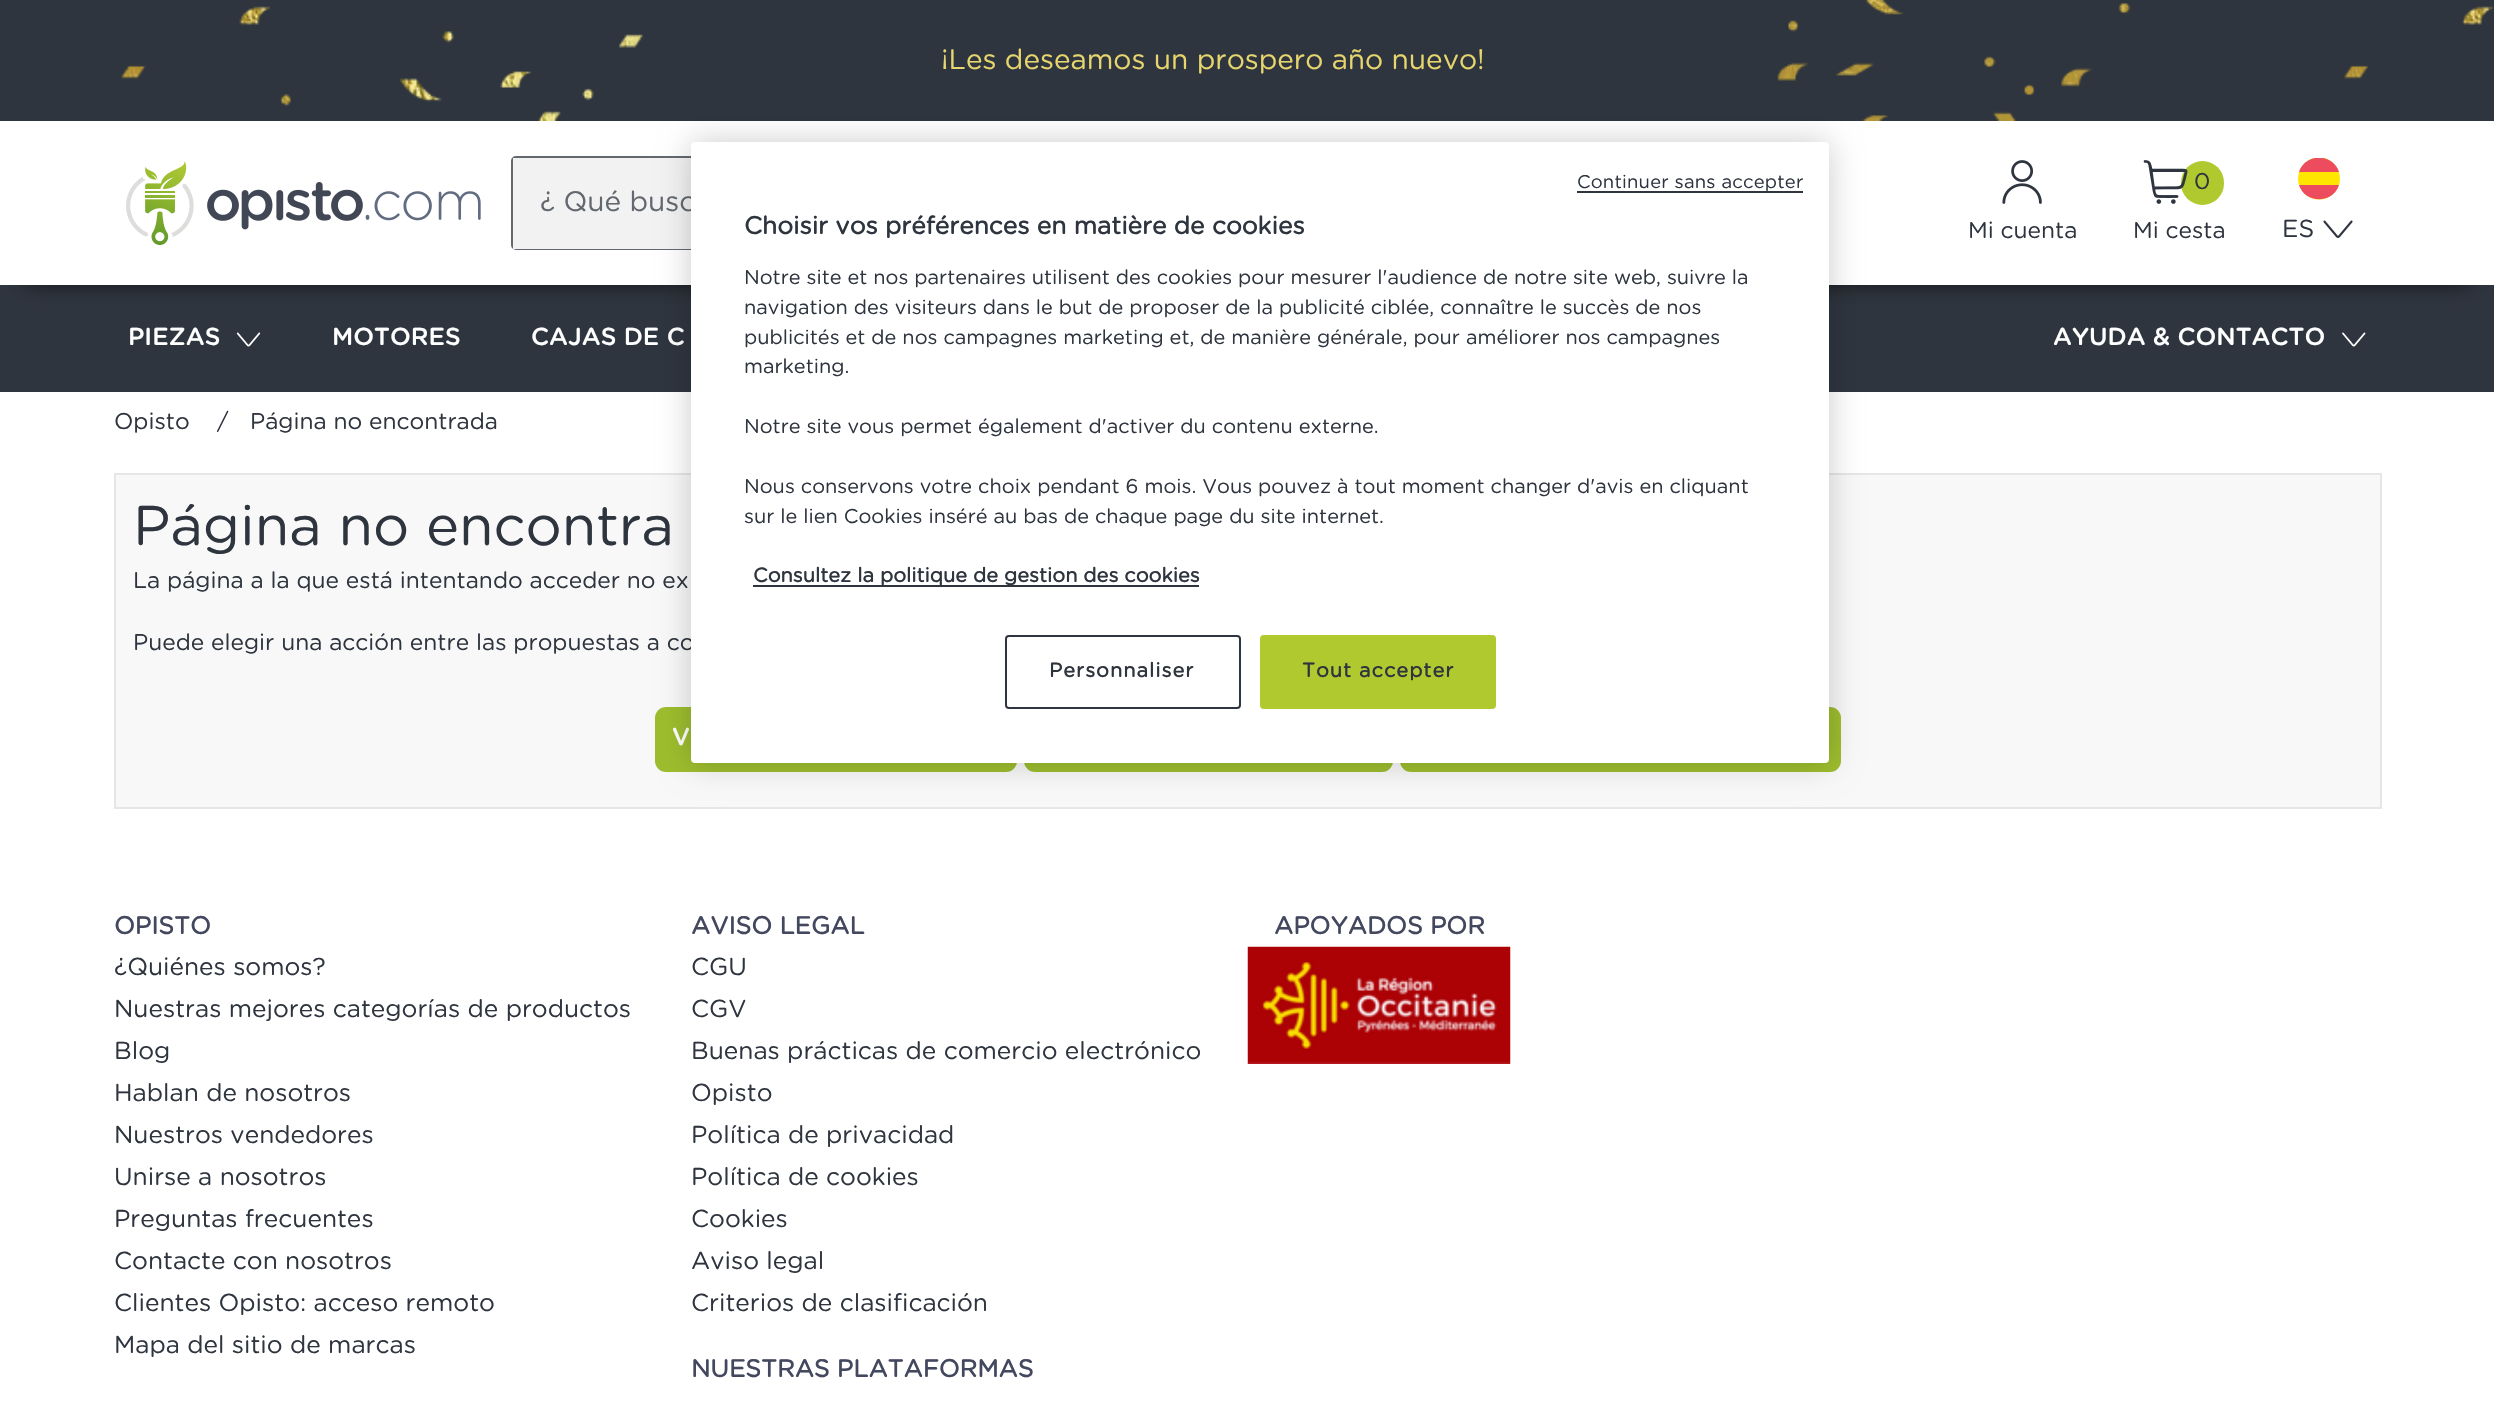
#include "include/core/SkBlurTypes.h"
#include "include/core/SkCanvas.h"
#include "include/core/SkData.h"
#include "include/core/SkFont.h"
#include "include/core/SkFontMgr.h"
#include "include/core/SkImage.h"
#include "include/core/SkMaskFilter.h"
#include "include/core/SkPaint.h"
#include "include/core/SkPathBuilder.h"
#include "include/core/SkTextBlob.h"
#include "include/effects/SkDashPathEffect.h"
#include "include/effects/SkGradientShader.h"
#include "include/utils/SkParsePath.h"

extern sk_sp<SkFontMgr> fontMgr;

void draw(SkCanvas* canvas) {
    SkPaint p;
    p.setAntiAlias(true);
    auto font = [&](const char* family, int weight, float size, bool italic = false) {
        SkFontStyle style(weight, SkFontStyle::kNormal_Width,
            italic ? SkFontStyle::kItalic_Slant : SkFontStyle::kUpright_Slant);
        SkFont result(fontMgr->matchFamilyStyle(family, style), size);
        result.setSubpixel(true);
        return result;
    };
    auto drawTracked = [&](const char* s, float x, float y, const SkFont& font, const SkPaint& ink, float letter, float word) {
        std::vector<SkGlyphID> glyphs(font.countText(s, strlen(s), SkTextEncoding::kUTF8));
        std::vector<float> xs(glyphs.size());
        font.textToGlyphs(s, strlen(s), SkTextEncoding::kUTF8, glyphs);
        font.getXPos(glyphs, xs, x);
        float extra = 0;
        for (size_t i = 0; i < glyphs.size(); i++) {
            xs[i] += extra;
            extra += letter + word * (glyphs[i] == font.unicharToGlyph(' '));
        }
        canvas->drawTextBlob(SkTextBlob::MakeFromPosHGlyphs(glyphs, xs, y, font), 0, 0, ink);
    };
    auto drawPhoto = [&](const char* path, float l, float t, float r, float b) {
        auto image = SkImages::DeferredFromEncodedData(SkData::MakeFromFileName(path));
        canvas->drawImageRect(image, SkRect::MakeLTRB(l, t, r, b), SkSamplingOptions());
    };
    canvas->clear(0xFFFFFFFF);
    drawPhoto("media/1.png", 0, 0, 2494, 121);
    auto font1 = font("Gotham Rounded", 400, 28);
    p.setColor(0xFFE7D66D);
    canvas->drawString("¡Les deseamos un prospero año nuevo!", 941, 69, font1, p);
    p.setColor(0xFF2F353F);
    canvas->drawRect(SkRect::MakeLTRB(0, 285, 2494, 392), p);
    canvas->save();
    canvas->clipRect(SkRect::MakeLTRB(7, 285, 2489, 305));
    p.setColor(0xFF000000);
    p.setMaskFilter(SkMaskFilter::MakeBlur(kNormal_SkBlurStyle, 13));
    canvas->drawRect(SkRect::MakeLTRB(25, 163, 2471, 278), p);
    p.setMaskFilter(nullptr);
    canvas->restore();
    drawPhoto("media/2.png", 126, 161, 481, 245);
    p.setStyle(SkPaint::kStroke_Style);
    p.setStrokeWidth(2);
    p.setColor(0xFF63686F);
    canvas->drawRoundRect(SkRect::MakeLTRB(512, 157, 1210, 249), 4, 4, p);
    p.setStyle(SkPaint::kFill_Style);
    p.setColor(0xFFF2F2F2);
    canvas->drawRect(SkRect::MakeLTRB(513, 158, 691, 249), p);
    p.setColor(0xFF63686F);
    canvas->drawString("¿ Qué busc", 540, 211, font1, p);
    drawPhoto("media/3.png", 2002, 160, 2042, 204);
    auto font2 = font("Gotham Rounded", 400, 22.75f);
    p.setColor(0xFF2F353F);
    canvas->drawString("Mi cuenta", 1968, 238, font2, p);
    p.setColor(0xFFB0C92E);
    canvas->drawRoundRect(SkRect::MakeLTRB(2181, 161, 2224, 205), 21.5f, 21.5f, p);
    drawPhoto("media/4.png", 2143, 160, 2188, 204);
    p.setColor(0xFF2F353F);
    canvas->drawString("0", 2194, 189, font2, p);
    canvas->drawString("Mi cesta", 2133, 238, font2, p);
    canvas->save();
    canvas->clipRect(SkRect::MakeLTRB(2298, 158, 2340, 200));
    p.setColor(0xFFFFE600);
    canvas->drawCircle(2319, 178.5f, 21, p);
    canvas->restore();
    p.setColor(0xFFEC4C5D);
    canvas->drawPath(SkPathBuilder().moveTo(2339, 185).cubicTo(2333, 204, 2305, 204, 2299, 185).close().detach(), p);
    canvas->save();
    canvas->clipRect(SkRect::MakeLTRB(2298, 158, 2340, 200));
    canvas->drawPath(SkPathBuilder().moveTo(2299, 172).cubicTo(2305, 153, 2333, 153, 2339, 172).close().detach(), p);
    canvas->restore();
    auto font3 = font("Gotham Rounded", 400, 24.5f);
    p.setColor(0xFF2F353F);
    canvas->drawString("ES", 2282, 237, font3, p);
    drawPhoto("media/5.png", 2323, 220, 2353, 238);
    auto font4 = font("Gotham Rounded", 500, 24.5f);
    p.setColor(0xFFFFFFFF);
    canvas->drawString("PIEZAS", 128, 345, font4, p);
    drawPhoto("media/6.png", 236, 332, 261, 347);
    {
        const struct { const char* s; float x, y; } items[] = {
            {"MOTORES", 332, 345},
            {"CAJAS DE C", 531, 345},
            {"AYUDA & CONTACTO", 2053, 345},
        };
        for (auto [s, x, y] : items) {
            canvas->drawString(s, x, y, font4, p);
        }
    }
    drawPhoto("media/7.png", 2342, 332, 2366, 347);
    p.setColor(0xFF2F353F);
    {
        const struct { const char* s; float x, y; } items[] = {
            {"Opisto", 114, 429},
            {"/", 217, 429},
            {"Página no encontrada", 250, 429},
        };
        for (auto [s, x, y] : items) {
            canvas->drawString(s, x, y, font2, p);
        }
    }
    p.setColor(0xFFF8F8F8);
    canvas->drawRect(SkRect::MakeLTRB(115, 474, 2381, 808), p);
    p.setStyle(SkPaint::kStroke_Style);
    p.setColor(0xFFE6E6E6);
    canvas->drawRect(SkRect::MakeLTRB(115, 474, 2381, 808), p);
    auto font5 = font("Gotham Rounded", 400, 56);
    p.setStyle(SkPaint::kFill_Style);
    p.setColor(0xFF2F353F);
    canvas->drawString("Página no encontra", 133, 545, font5, p);
    canvas->drawString("La página a la que está intentando acceder no ex", 133, 588, font2, p);
    canvas->drawString("Puede elegir una acción entre las propuestas a co", 133, 650, font2, p);
    p.setColor(0xFF9DBD2E);
    canvas->drawRoundRect(SkRect::MakeLTRB(655, 707, 1017, 772), 11, 11, p);
    p.setColor(0xFFFFFFFF);
    canvas->drawString("V", 672, 745, font4, p);
    p.setColor(0xFF9DBD2E);
    canvas->drawRoundRect(SkRect::MakeLTRB(1024, 707, 1393, 772), 11, 11, p);
    canvas->drawRoundRect(SkRect::MakeLTRB(1400, 707, 1841, 772), 11, 11, p);
    p.setColor(0x33000000);
    p.setMaskFilter(SkMaskFilter::MakeBlur(kNormal_SkBlurStyle, 16));
    canvas->drawRoundRect(SkRect::MakeLTRB(691, 142, 1829, 763), 4, 4, p);
    p.setMaskFilter(nullptr);
    p.setColor(0xFFFFFFFF);
    canvas->drawRoundRect(SkRect::MakeLTRB(691, 142, 1829, 763), 4, 4, p);
    auto font6 = font("Gotham Rounded", 400, 18.4f);
    p.setColor(0xFF2F353F);
    drawTracked("Continuer sans accepter", 1577, 188, font6, p, 0.2f, 0);
    canvas->drawRect(SkRect::MakeLTRB(1577, 191, 1803, 193), p);
    auto font7 = font("Gotham Rounded", 700, 24.5f);
    canvas->drawString("Choisir vos préférences en matière de cookies", 744, 234, font7, p);
    auto font8 = font("Gotham Rounded", 400, 19.92f);
    {
        const struct { const char* s; float x, y; } items[] = {
            {"Notre site et nos partenaires  utilisent des cookies pour mesurer l'audience de notre site web, suivre la", 744, 284},
            {"navigation des visiteurs dans le but de proposer de la publicité ciblée, connaître le succès de nos", 744, 314},
            {"publicités et de nos campagnes marketing et, de manière générale, pour améliorer nos campagnes", 744, 344},
            {"marketing.", 744, 373},
            {"Notre site vous permet également d'activer du contenu externe.", 744, 433},
            {"Nous conservons votre choix pendant 6 mois. Vous pouvez à tout moment changer d'avis en cliquant", 744, 493},
            {"sur le lien Cookies inséré au bas de chaque page du site internet.", 744, 523},
        };
        for (auto [s, x, y] : items) {
            canvas->drawString(s, x, y, font8, p);
        }
    }
    canvas->drawRect(SkRect::MakeLTRB(753, 585, 1199, 587), p);
    auto font9 = font("Gotham Rounded", 700, 19.92f);
    canvas->drawString("Consultez la politique de gestion des cookies", 753, 582, font9, p);
    p.setStyle(SkPaint::kStroke_Style);
    canvas->drawRoundRect(SkRect::MakeLTRB(1006, 636, 1240, 708), 3, 3, p);
    p.setStyle(SkPaint::kFill_Style);
    drawTracked("Personnaliser", 1049, 677, font9, p, 1, 0);
    p.setColor(0xFFB0C92E);
    canvas->drawRoundRect(SkRect::MakeLTRB(1261, 636, 1495, 708), 3, 3, p);
    p.setStyle(SkPaint::kStroke_Style);
    canvas->drawRoundRect(SkRect::MakeLTRB(1261, 636, 1495, 708), 3, 3, p);
    p.setStyle(SkPaint::kFill_Style);
    p.setColor(0xFF2F353F);
    drawTracked("Tout accepter", 1302, 677, font9, p, 1, 0);
    p.setColor(0xFF43485E);
    canvas->drawString("OPISTO", 114, 934, font7, p);
    p.setColor(0xFF2F353F);
    {
        const struct { const char* s; float x, y; } items[] = {
            {"¿Quiénes somos?", 114, 975},
            {"Nuestras mejores categorías de productos", 114, 1017},
            {"Blog", 114, 1059},
            {"Hablan de nosotros", 114, 1101},
            {"Nuestros vendedores", 114, 1143},
            {"Unirse a nosotros", 114, 1185},
            {"Preguntas frecuentes", 114, 1227},
            {"Contacte con nosotros", 114, 1269},
            {"Clientes Opisto: acceso remoto", 114, 1311},
            {"Mapa del sitio de marcas", 114, 1353},
        };
        for (auto [s, x, y] : items) {
            canvas->drawString(s, x, y, font3, p);
        }
    }
    p.setColor(0xFF43485E);
    canvas->drawString("AVISO LEGAL", 691, 934, font7, p);
    p.setColor(0xFF2F353F);
    {
        const struct { const char* s; float x, y; } items[] = {
            {"CGU", 691, 975},
            {"CGV", 691, 1017},
            {"Buenas prácticas de comercio electrónico", 691, 1059},
            {"Opisto", 691, 1101},
            {"Política de privacidad", 691, 1143},
            {"Política de cookies", 691, 1185},
            {"Cookies", 691, 1227},
            {"Aviso legal", 691, 1269},
            {"Criterios de clasificación", 691, 1311},
        };
        for (auto [s, x, y] : items) {
            canvas->drawString(s, x, y, font3, p);
        }
    }
    p.setColor(0xFF43485E);
    canvas->drawString("NUESTRAS PLATAFORMAS", 691, 1377, font7, p);
    canvas->drawString("APOYADOS POR", 1274, 934, font7, p);
    drawPhoto("media/8.png", 1247, 946, 1511, 1064);
}
